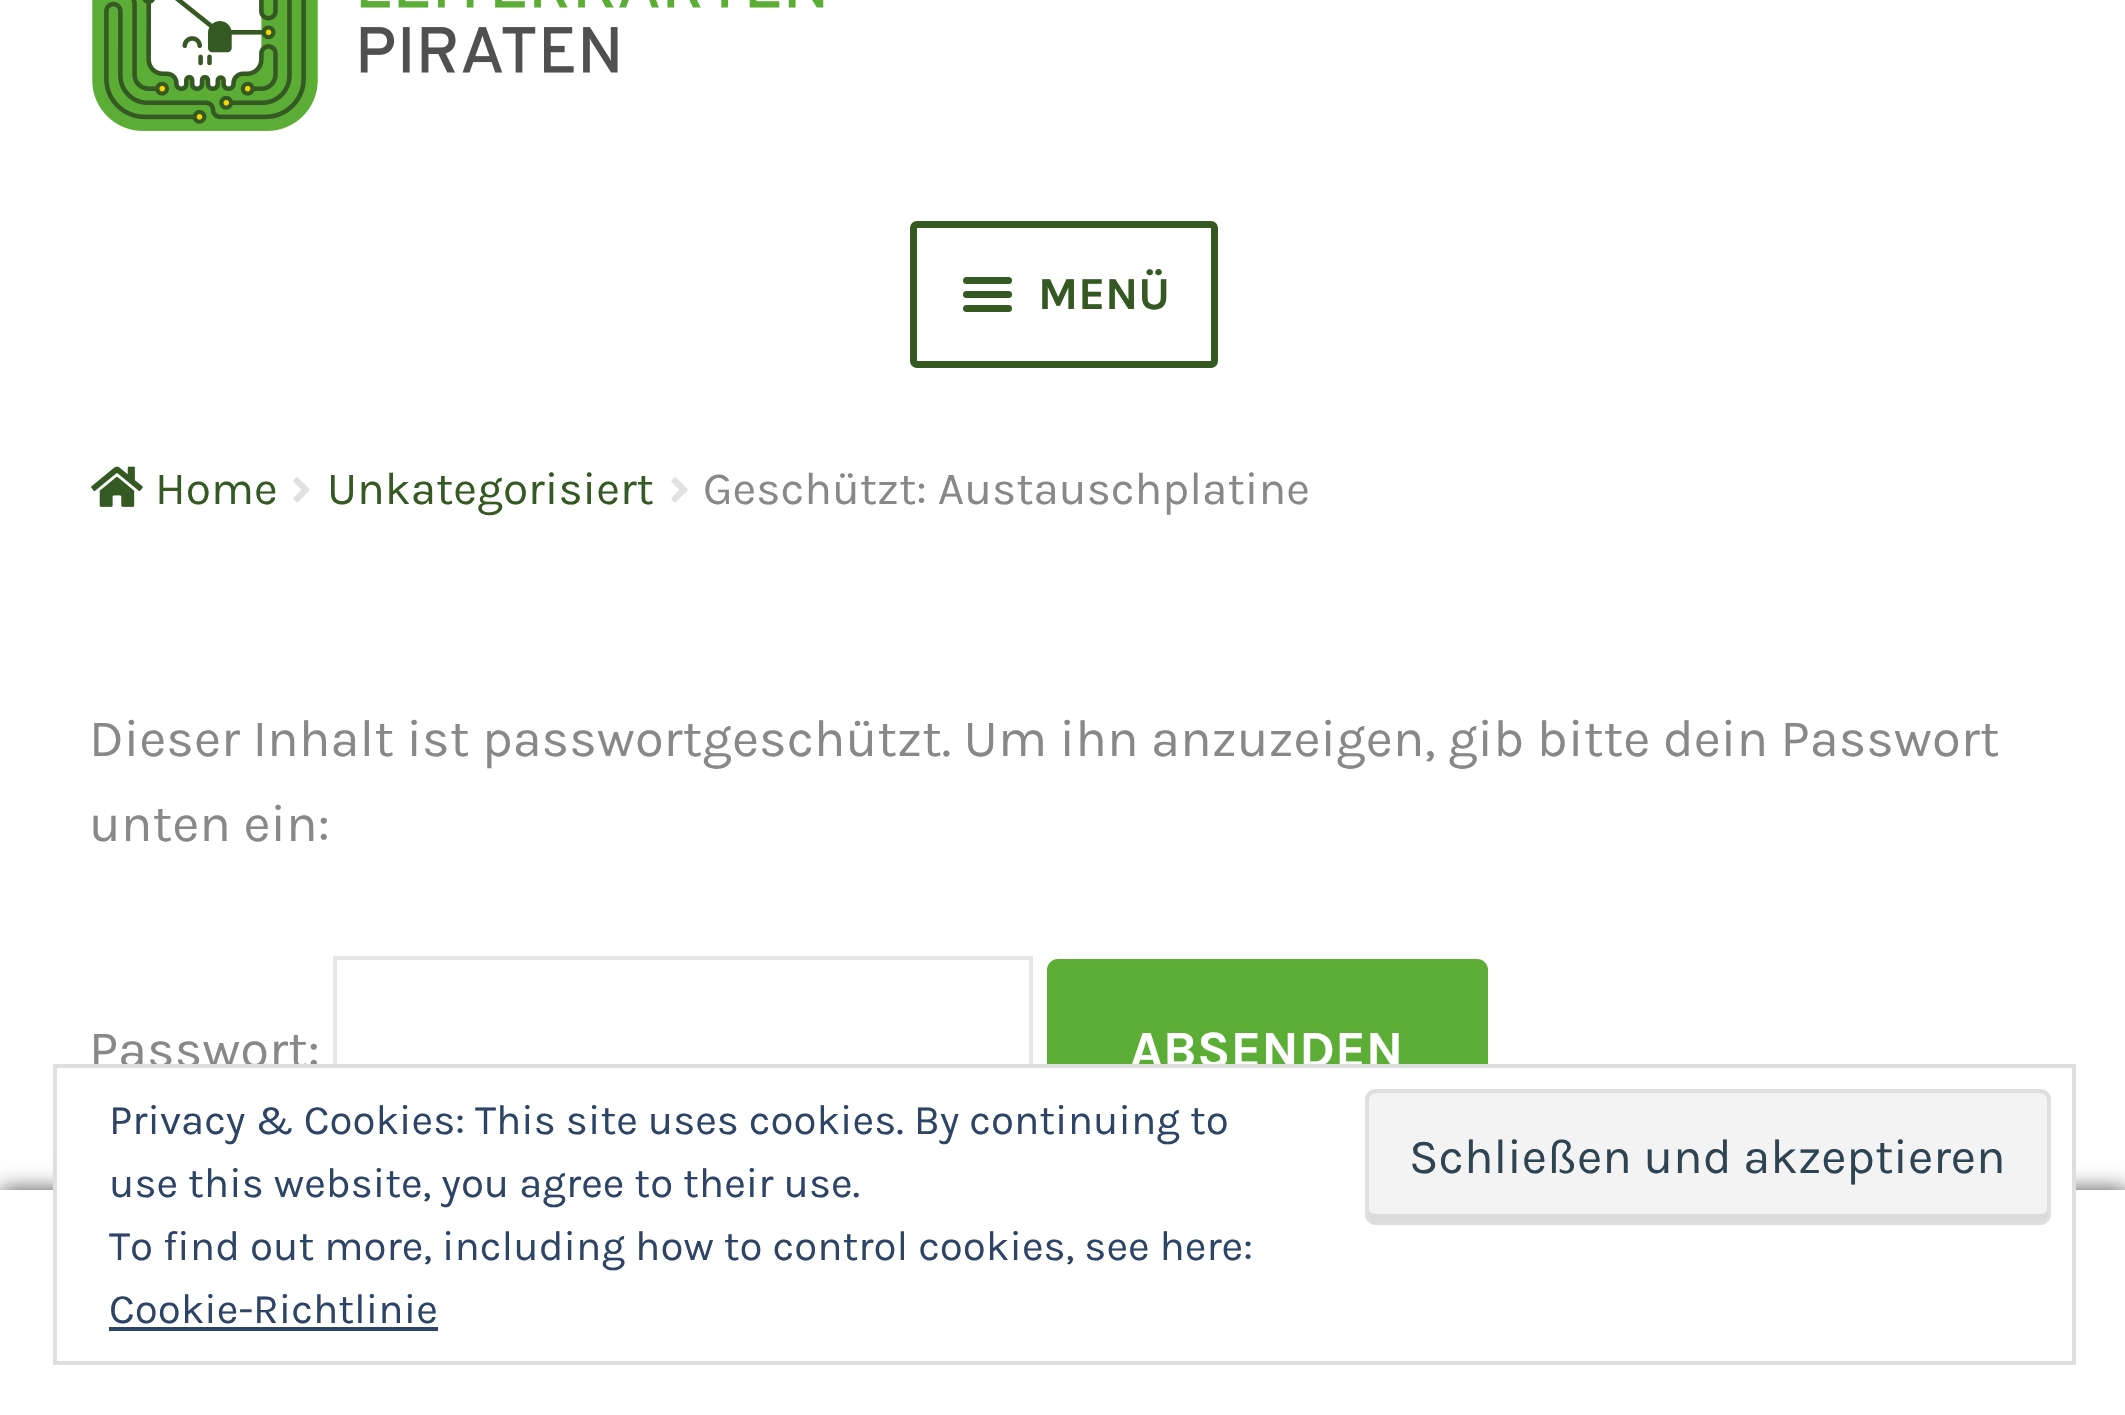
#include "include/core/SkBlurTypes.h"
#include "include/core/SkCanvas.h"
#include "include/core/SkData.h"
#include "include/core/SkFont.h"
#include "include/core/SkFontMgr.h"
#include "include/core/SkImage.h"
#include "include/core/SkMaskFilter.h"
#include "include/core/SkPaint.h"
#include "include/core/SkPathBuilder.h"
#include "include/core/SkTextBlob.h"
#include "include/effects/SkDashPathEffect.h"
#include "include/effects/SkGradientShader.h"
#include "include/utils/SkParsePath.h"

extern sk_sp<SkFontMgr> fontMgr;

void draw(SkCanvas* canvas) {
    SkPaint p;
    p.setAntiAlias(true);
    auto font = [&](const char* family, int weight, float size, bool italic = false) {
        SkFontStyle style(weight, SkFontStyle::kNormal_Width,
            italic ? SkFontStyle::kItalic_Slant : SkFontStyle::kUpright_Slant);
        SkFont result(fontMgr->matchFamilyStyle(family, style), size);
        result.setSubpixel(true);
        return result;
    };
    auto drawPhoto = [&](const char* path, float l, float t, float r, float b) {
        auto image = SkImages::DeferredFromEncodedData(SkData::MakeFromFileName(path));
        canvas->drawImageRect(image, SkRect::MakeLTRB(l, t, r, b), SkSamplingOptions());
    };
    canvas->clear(0xFFFFFFFF);
    drawPhoto("media/1.png", 92, 0, 824, 131);
    p.setStyle(SkPaint::kStroke_Style);
    p.setStrokeWidth(7);
    p.setColor(0xFF355923);
    canvas->drawRoundRect(SkRect::MakeLTRB(913.5f, 224.5f, 1214.5f, 364.5f), 3.5f, 3.5f, p);
    p.setStyle(SkPaint::kFill_Style);
    canvas->drawRoundRect(SkRect::MakeLTRB(963, 277, 1012, 284), 3.5f, 3.5f, p);
    canvas->drawRoundRect(SkRect::MakeLTRB(963, 291, 1012, 298), 3.5f, 3.5f, p);
    auto font1 = font("Karla", 700, 46);
    canvas->drawString("MENÜ", 1038, 309, font1, p);
    canvas->drawRoundRect(SkRect::MakeLTRB(963, 305, 1012, 312), 3.5f, 3.5f, p);
    drawPhoto("media/2.png", 91, 466, 143, 507);
    auto font2 = font("Karla", 400, 46);
    canvas->drawString("Home", 155, 504, font2, p);
    drawPhoto("media/3.png", 293, 477, 310, 503);
    canvas->drawString("Unkategorisiert", 327, 504, font2, p);
    drawPhoto("media/3.png", 671, 477, 688, 503);
    p.setColor(0xFF888888);
    canvas->drawString("Geschützt: Austauschplatine", 703, 504, font2, p);
    auto font3 = font("Karla", 400, 52.55f);
    {
        const struct { const char* s; float x, y; } items[] = {
            {"Dieser Inhalt ist passwortgeschützt. Um ihn anzuzeigen, gib bitte dein Passwort", 89, 756},
            {"unten ein:", 89, 841},
            {"Passwort:", 89, 1067},
        };
        for (auto [s, x, y] : items) {
            canvas->drawString(s, x, y, font3, p);
        }
    }
    p.setStyle(SkPaint::kStroke_Style);
    p.setStrokeWidth(4);
    p.setColor(0xFFE6E6E6);
    canvas->drawRect(SkRect::MakeLTRB(335, 958, 1031, 1143), p);
    p.setStyle(SkPaint::kFill_Style);
    p.setColor(0xFF5CAD36);
    canvas->drawRoundRect(SkRect::MakeLTRB(1047, 959, 1488, 1141), 11, 11, p);
    auto font4 = font("Karla", 700, 52.55f);
    p.setColor(0xFFFFFFFF);
    canvas->drawString("ABSENDEN", 1130, 1067, font4, p);
    p.setColor(0xB3000000);
    p.setMaskFilter(SkMaskFilter::MakeBlur(kNormal_SkBlurStyle, 10.5f));
    canvas->drawRect(SkRect::MakeLTRB(0, 1190, 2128, 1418), p);
    p.setMaskFilter(nullptr);
    {
        const struct { float l, t, r, b; SkColor color; } items[] = {
            {0, 1190, 2125, 1194, 0xFFFFFFFF},
            {0, 1194, 711, 1415, 0xFFFFFFFF},
            {711, 1365, 1418, 1415, 0xFFFFFFFF},
            {1418, 1194, 2125, 1415, 0xFFFFFFFF},
        };
        for (auto [l, t, r, b, color] : items) {
            p.setColor(color);
            canvas->drawRect(SkRect::MakeLTRB(l, t, r, b), p);
        }
    }
    canvas->drawRect(SkRect::MakeLTRB(55, 1066, 2074, 1363), p);
    p.setStyle(SkPaint::kStroke_Style);
    p.setColor(0xFFDEDEDE);
    canvas->drawRect(SkRect::MakeLTRB(55, 1066, 2074, 1363), p);
    auto font5 = font("Karla", 400, 42);
    p.setStyle(SkPaint::kFill_Style);
    p.setColor(0xFF2E4467);
    canvas->drawString("Privacy & Cookies: This site uses cookies. By continuing to", 109, 1134, font5, p);
    canvas->drawString("use this website, you agree to their use.", 109, 1197, font5, p);
    p.setColor(0xFFF3F3F3);
    canvas->drawRoundRect(SkRect::MakeLTRB(1365, 1089, 2051, 1225), 11, 11, p);
    p.setColor(0xFFDBDBDB);
    canvas->drawPath(SkPathBuilder().moveTo(1369, 1211).cubicTo(1369, 1216, 1369, 1222, 1376, 1222).lineTo(2041, 1222).cubicTo(2049, 1222, 2048, 1213, 2048, 1208).cubicTo(2048, 1211, 2044, 1214, 2040, 1214).lineTo(1376, 1214).cubicTo(1373, 1214, 1370, 1213, 1369, 1211).close().detach(), p);
    p.setStyle(SkPaint::kStroke_Style);
    p.setColor(0xFFDEDEDE);
    canvas->drawRoundRect(SkRect::MakeLTRB(1367, 1091, 2049, 1223), 9, 9, p);
    auto font6 = font("Karla", 400, 49);
    p.setStyle(SkPaint::kFill_Style);
    p.setColor(0xFF2E4453);
    canvas->drawString("Schließen und akzeptieren", 1409, 1173, font6, p);
    p.setColor(0xFF2E4467);
    canvas->drawString("To find out more, including how to control cookies, see here:", 109, 1260, font5, p);
    canvas->drawString("Cookie-Richtlinie", 109, 1323, font5, p);
    canvas->drawRect(SkRect::MakeLTRB(109, 1327, 438, 1331), p);
}
